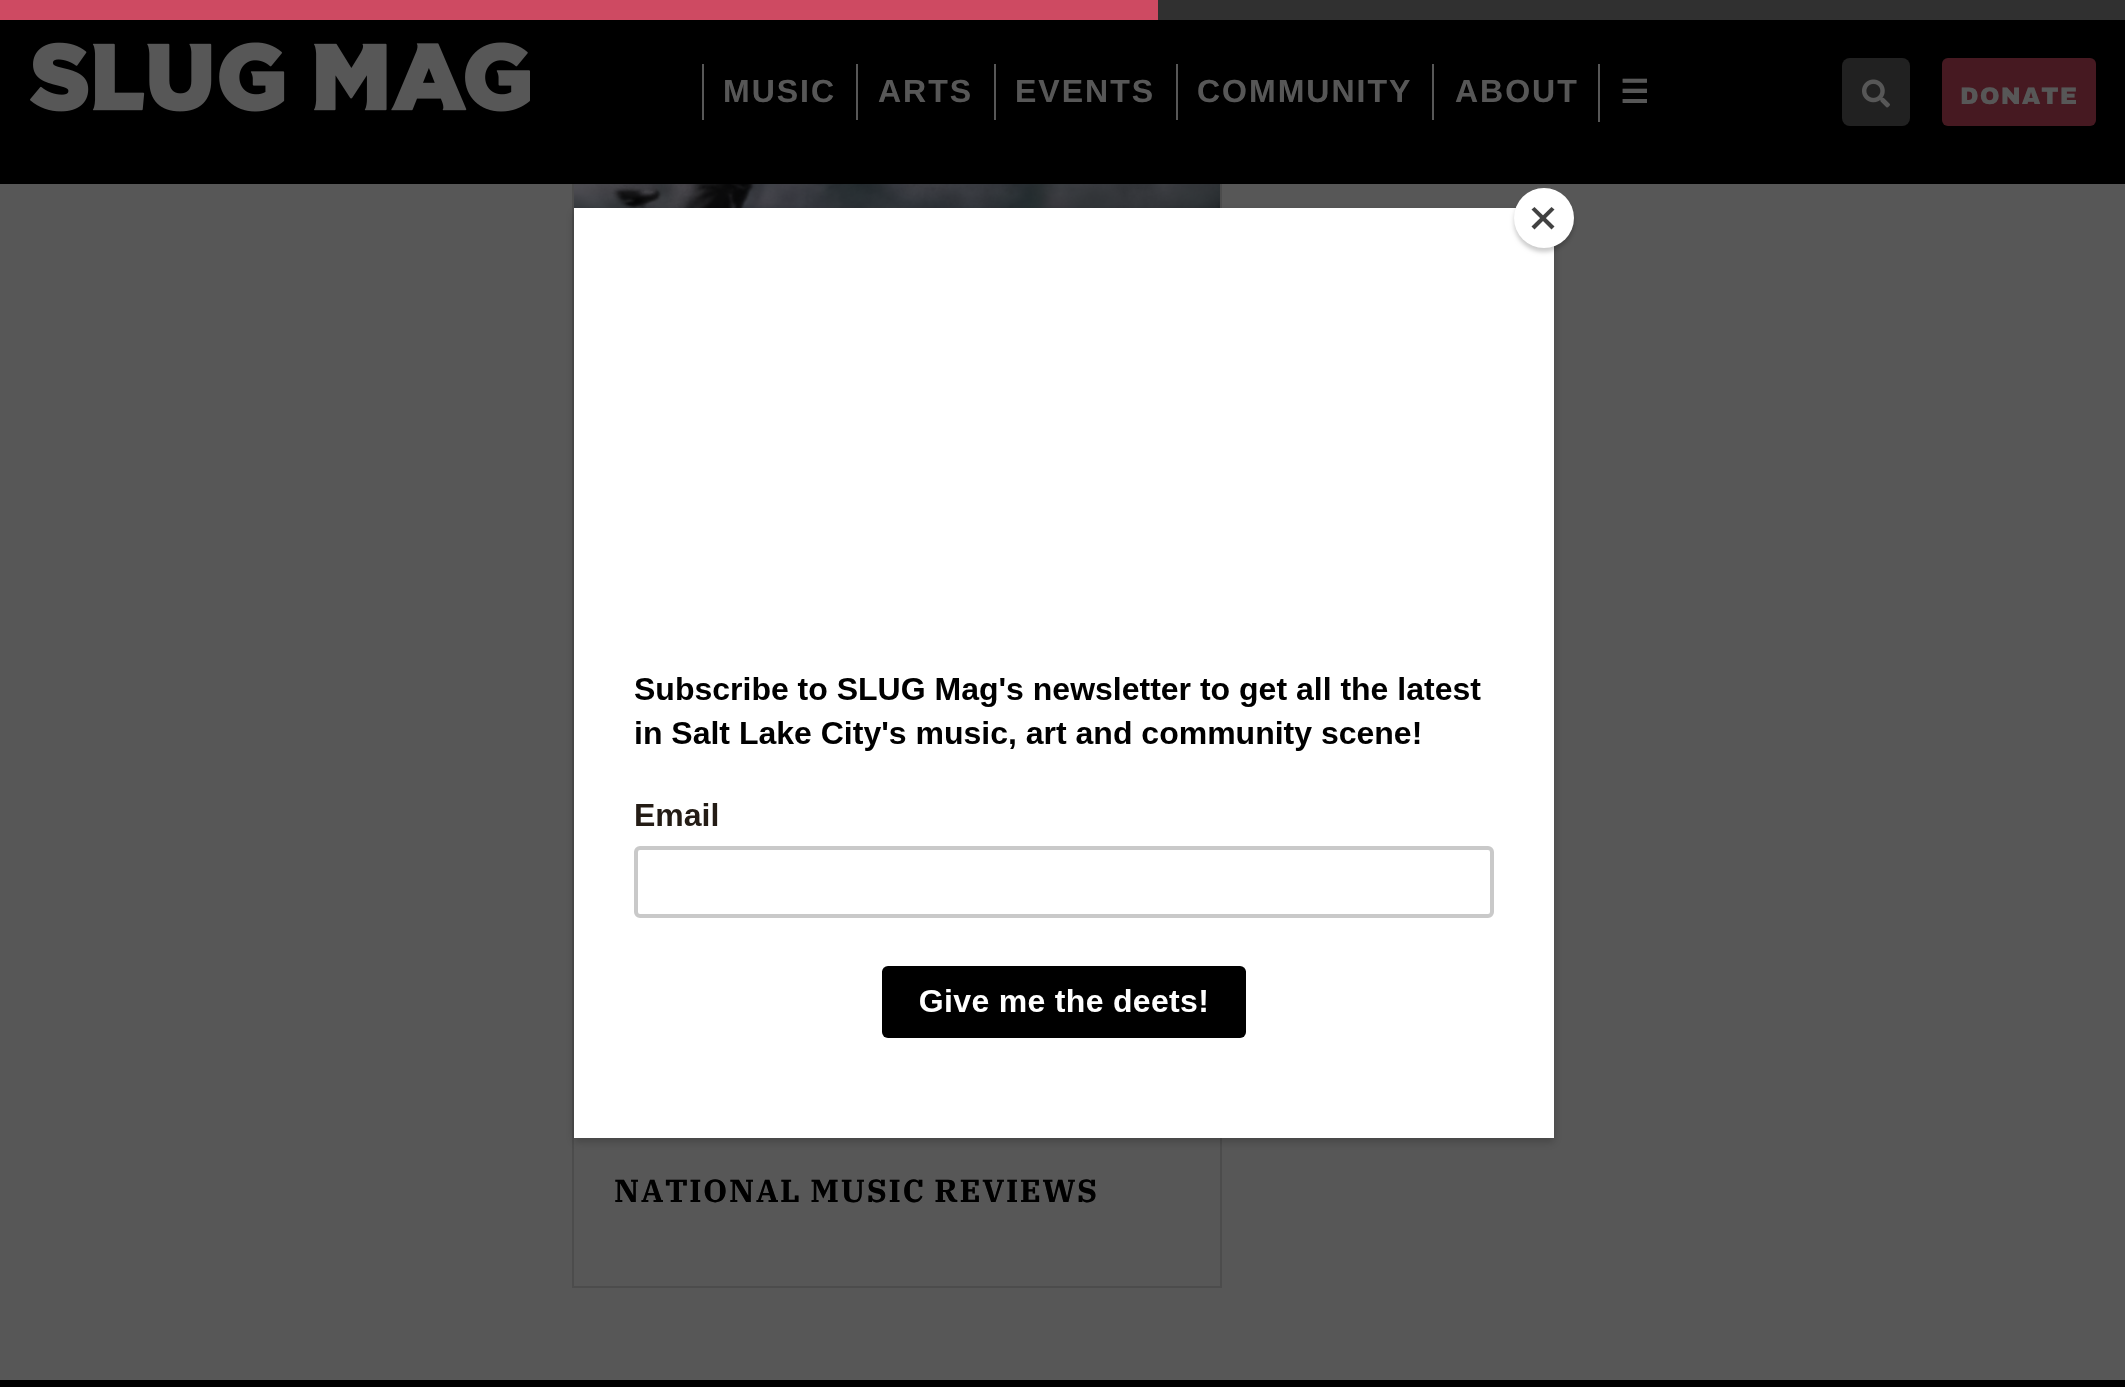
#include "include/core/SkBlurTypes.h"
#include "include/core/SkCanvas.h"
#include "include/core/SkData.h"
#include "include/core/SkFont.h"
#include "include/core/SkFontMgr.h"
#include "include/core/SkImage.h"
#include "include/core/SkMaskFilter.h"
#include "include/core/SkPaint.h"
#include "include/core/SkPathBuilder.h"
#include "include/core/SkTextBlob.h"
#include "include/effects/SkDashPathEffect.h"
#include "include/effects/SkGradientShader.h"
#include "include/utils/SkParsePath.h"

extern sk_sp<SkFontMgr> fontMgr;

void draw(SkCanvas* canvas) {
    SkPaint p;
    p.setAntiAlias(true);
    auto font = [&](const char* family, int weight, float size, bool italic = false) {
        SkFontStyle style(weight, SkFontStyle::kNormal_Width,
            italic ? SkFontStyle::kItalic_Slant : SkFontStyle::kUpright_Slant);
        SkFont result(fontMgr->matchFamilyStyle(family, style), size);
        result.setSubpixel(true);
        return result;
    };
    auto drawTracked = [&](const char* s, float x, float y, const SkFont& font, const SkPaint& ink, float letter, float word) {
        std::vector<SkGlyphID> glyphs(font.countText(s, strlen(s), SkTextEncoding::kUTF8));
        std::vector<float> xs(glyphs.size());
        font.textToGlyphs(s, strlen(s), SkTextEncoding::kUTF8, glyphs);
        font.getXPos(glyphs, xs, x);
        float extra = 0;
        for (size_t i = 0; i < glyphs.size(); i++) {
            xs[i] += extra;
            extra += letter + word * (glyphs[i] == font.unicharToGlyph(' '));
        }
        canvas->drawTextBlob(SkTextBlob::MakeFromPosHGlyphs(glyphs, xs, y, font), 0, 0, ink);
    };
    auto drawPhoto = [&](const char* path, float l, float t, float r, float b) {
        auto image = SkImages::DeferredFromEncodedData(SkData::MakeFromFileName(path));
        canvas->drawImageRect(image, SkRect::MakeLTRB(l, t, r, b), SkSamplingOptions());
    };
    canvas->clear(0xFF575757);
    p.setStyle(SkPaint::kStroke_Style);
    p.setStrokeWidth(2);
    p.setColor(0xFF4C4C4C);
    canvas->drawRect(SkRect::MakeLTRB(573, -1, 1221, 1287), p);
    p.setStyle(SkPaint::kFill_Style);
    {
        const struct { float l, t, r, b; SkColor color; } items[] = {
            {1158, 0, 2125, 20, 0xFF303030},
            {0, 0, 1158, 20, 0xFFCE4A62},
            {0, 20, 2125, 184, 0xFF000000},
        };
        for (auto [l, t, r, b, color] : items) {
            p.setColor(color);
            canvas->drawRect(SkRect::MakeLTRB(l, t, r, b), p);
        }
    }
    drawPhoto("media/1.png", 30, 42, 530, 112);
    p.setColor(0xFF575757);
    canvas->drawRect(SkRect::MakeLTRB(702, 64, 704, 120), p);
    auto font1 = font("Liberation Sans", 700, 32);
    drawTracked("MUSIC", 723, 102, font1, p, 2, 0);
    canvas->drawRect(SkRect::MakeLTRB(856, 64, 858, 120), p);
    drawTracked("ARTS", 878, 102, font1, p, 2, 0);
    canvas->drawRect(SkRect::MakeLTRB(994, 64, 996, 120), p);
    drawTracked("EVENTS", 1015, 102, font1, p, 2, 0);
    canvas->drawRect(SkRect::MakeLTRB(1176, 64, 1178, 120), p);
    drawTracked("COMMUNITY", 1197, 102, font1, p, 2, 0);
    canvas->drawRect(SkRect::MakeLTRB(1432, 64, 1434, 120), p);
    drawTracked("ABOUT", 1455, 102, font1, p, 2, 0);
    canvas->drawRect(SkRect::MakeLTRB(1598, 64, 1600, 122), p);
    auto font2 = font("DejaVu Sans", 700, 32);
    drawTracked("☰", 1620, 103, font2, p, 2, 0);
    p.setColor(0xFF212121);
    canvas->drawRoundRect(SkRect::MakeLTRB(1842, 58, 1910, 126), 8, 8, p);
    drawPhoto("media/2.png", 1862, 79, 1890, 108);
    p.setColor(0xFF461921);
    canvas->drawRoundRect(SkRect::MakeLTRB(1942, 58, 2096, 126), 6, 6, p);
    auto font3 = font("Archivo Black", 900, 24);
    p.setColor(0xFF575757);
    drawTracked("DONATE", 1960, 104, font3, p, 1, 0);
    drawPhoto("media/4.png", 574, 184, 1220, 208);
    p.setColor(0x33000000);
    p.setMaskFilter(SkMaskFilter::MakeBlur(kNormal_SkBlurStyle, 4));
    canvas->drawRect(SkRect::MakeLTRB(574, 212, 1554, 1142), p);
    p.setMaskFilter(nullptr);
    drawPhoto("media/3.png", 574, 208, 1554, 1138);
    p.setMaskFilter(SkMaskFilter::MakeBlur(kNormal_SkBlurStyle, 2));
    canvas->drawRoundRect(SkRect::MakeLTRB(1514, 192, 1574, 252), 30, 30, p);
    p.setMaskFilter(nullptr);
    p.setColor(0xFFFFFFFF);
    canvas->drawCircle(1544, 218, 30, p);
    p.setColor(0xFF414141);
    canvas->drawPath(SkPathBuilder().moveTo(1551.5f, 207).lineTo(1554.5f, 209.5f).lineTo(1534.5f, 229.5f).lineTo(1531.5f, 226.5f).close().detach(), p);
    canvas->drawPath(SkPathBuilder().moveTo(1531.5f, 209.5f).lineTo(1534.5f, 207).lineTo(1554.5f, 226.5f).lineTo(1551.5f, 229.5f).close().detach(), p);
    auto font4 = font("IBM Plex Serif", 700, 32);
    p.setColor(0xFF000000);
    drawTracked("NATIONAL MUSIC REVIEWS", 614, 1202, font4, p, 1.6f, 0);
    canvas->drawRect(SkRect::MakeLTRB(0, 1380, 2125, 1387), p);
}
